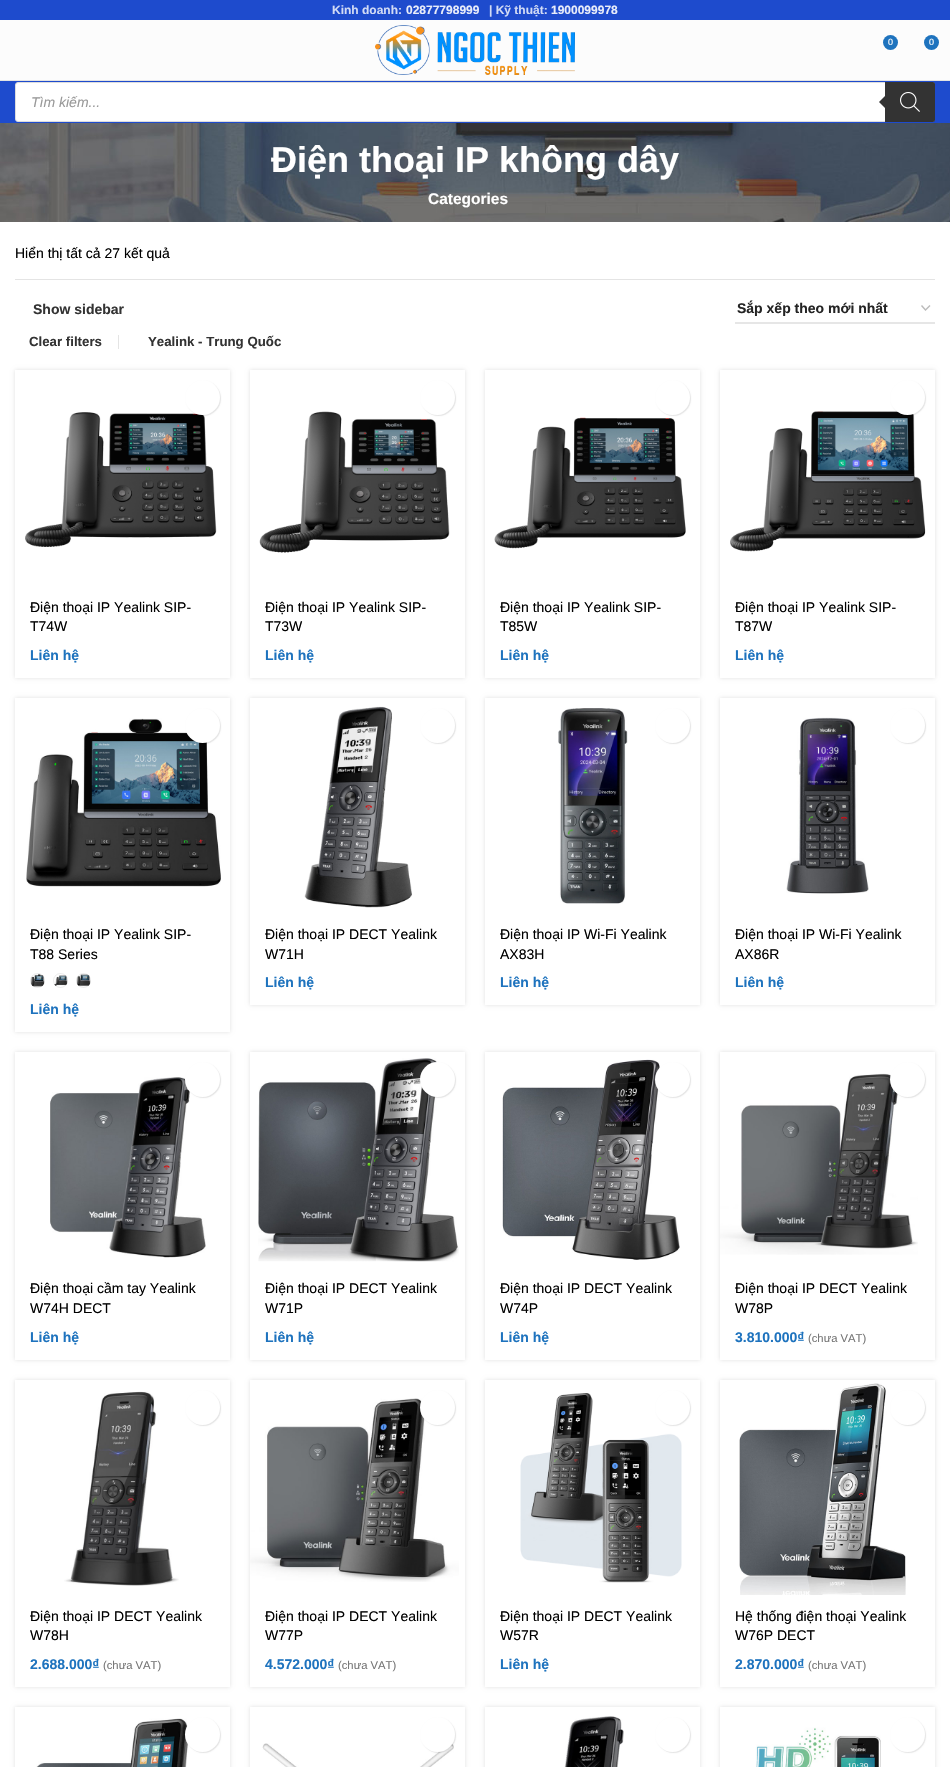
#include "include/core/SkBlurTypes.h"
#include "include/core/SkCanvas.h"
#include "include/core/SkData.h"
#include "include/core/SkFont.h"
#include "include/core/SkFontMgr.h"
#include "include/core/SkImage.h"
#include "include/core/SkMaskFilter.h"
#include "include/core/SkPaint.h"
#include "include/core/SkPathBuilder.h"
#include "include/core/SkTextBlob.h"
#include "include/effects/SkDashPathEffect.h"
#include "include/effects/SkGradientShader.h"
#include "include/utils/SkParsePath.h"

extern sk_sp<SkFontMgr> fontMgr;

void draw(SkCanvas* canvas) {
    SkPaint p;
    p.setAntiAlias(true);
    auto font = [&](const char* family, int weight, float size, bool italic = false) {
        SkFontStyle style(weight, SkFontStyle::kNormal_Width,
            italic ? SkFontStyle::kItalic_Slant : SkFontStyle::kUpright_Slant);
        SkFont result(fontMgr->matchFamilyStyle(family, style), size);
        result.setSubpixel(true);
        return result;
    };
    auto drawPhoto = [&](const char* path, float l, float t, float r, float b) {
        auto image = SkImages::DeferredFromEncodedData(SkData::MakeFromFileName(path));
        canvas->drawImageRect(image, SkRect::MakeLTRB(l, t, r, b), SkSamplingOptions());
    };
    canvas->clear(0xFFFFFFFF);
    p.setColor(0xFF1E4BCD);
    canvas->drawRect(SkRect::MakeLTRB(0, 0, 950, 20), p);
    auto font1 = font("Liberation Sans", 700, 12);
    p.setColor(0xFFD2DBF5);
    canvas->drawString("Kinh doanh:", 332, 14, font1, p);
    p.setColor(0xFFE9EDFA);
    canvas->drawString("02877798999", 406, 14, font1, p);
    p.setColor(0xFFD2DBF5);
    canvas->drawString("| Kỹ thuật:", 489, 14, font1, p);
    p.setColor(0xFFE9EDFA);
    canvas->drawString("1900099978", 551, 14, font1, p);
    p.setColor(0xFFFCFCFC);
    canvas->drawRect(SkRect::MakeLTRB(0, 20, 950, 80), p);
    p.setColor(0xFFE3E3E3);
    canvas->drawRect(SkRect::MakeLTRB(0, 80, 950, 81), p);
    drawPhoto("media/1.png", 375, 25, 575, 75);
    p.setColor(0xFF1E73BE);
    canvas->drawCircle(890.5f, 42.5f, 7.5f, p);
    auto font2 = font("Liberation Sans", 400, 9);
    p.setColor(0xFFFFFFFF);
    canvas->drawString("0", 888, 45, font2, p);
    p.setColor(0xFF1E73BE);
    canvas->drawCircle(931.5f, 42.5f, 7.5f, p);
    p.setColor(0xFFFFFFFF);
    canvas->drawString("0", 929, 45, font2, p);
    p.setColor(0xFF1E4BCD);
    canvas->drawRect(SkRect::MakeLTRB(0, 81, 950, 123), p);
    p.setColor(0xFFFFFFFF);
    canvas->drawRoundRect(SkRect::MakeLTRB(15.5f, 82.5f, 934.5f, 121.5f), 2.5f, 2.5f, p);
    p.setStyle(SkPaint::kStroke_Style);
    p.setStrokeWidth(1);
    p.setColor(0xFFDDDDDD);
    canvas->drawRoundRect(SkRect::MakeLTRB(15.5f, 82.5f, 934.5f, 121.5f), 2.5f, 2.5f, p);
    auto font3 = font("Liberation Sans", 400, 14, true);
    p.setStyle(SkPaint::kFill_Style);
    p.setColor(0xFF999999);
    canvas->drawString("Tìm kiếm...", 31, 107, font3, p);
    p.setColor(0xFF333333);
    canvas->drawPath(SkPathBuilder().moveTo(885, 82).lineTo(933, 82).cubicTo(934, 82, 935, 83, 935, 84).lineTo(935, 120).cubicTo(935, 121, 934, 122, 933, 122).lineTo(885, 122).close().detach(), p);
    canvas->drawPath(SkPathBuilder().moveTo(887, 94).lineTo(887, 110).lineTo(879, 102).close().detach(), p);
    drawPhoto("media/2.png", 900, 92, 920, 112);
    drawPhoto("media/3.png", 0, 123, 950, 222);
    auto font4 = font("Liberation Sans", 700, 36);
    p.setColor(0xFFFFFFFF);
    canvas->drawString("Điện thoại IP không dây", 271, 172, font4, p);
    auto font5 = font("Liberation Sans", 700, 15.5f);
    canvas->drawString("Categories", 428, 204, font5, p);
    p.setColor(0xFFE4E4E4);
    canvas->drawRect(SkRect::MakeLTRB(15, 279, 935, 280), p);
    auto font6 = font("Liberation Sans", 400, 14);
    p.setColor(0xFF000000);
    canvas->drawString("Hiển thị tất cả 27 kết quả", 15, 258, font6, p);
    auto font7 = font("Liberation Sans", 700, 14);
    p.setColor(0xFF333333);
    canvas->drawString("Show sidebar", 33, 314, font7, p);
    p.setStyle(SkPaint::kStroke_Style);
    p.setStrokeWidth(1.4f);
    p.setColor(0xFFBBBBBB);
    canvas->drawPath(SkPathBuilder().moveTo(921.5f, 305.5f).lineTo(925.5f, 310).lineTo(930, 305.5f).detach(), p);
    p.setStyle(SkPaint::kFill_Style);
    p.setColor(0xFFE6E6E6);
    canvas->drawRect(SkRect::MakeLTRB(735, 322, 935, 324), p);
    p.setColor(0xFF242424);
    canvas->drawString("Sắp xếp theo mới nhất", 737, 313, font7, p);
    p.setColor(0xFFE4E4E4);
    canvas->drawRect(SkRect::MakeLTRB(118, 335, 119, 349), p);
    auto font8 = font("Liberation Sans", 700, 13.25f);
    p.setColor(0xFF333333);
    canvas->drawString("Clear filters", 29, 346, font8, p);
    canvas->drawString("Yealink - Trung Quốc", 148, 346, font8, p);
    canvas->save();
    canvas->clipPath(SkPathBuilder(SkPathFillType::kEvenOdd).moveTo(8, 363).lineTo(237, 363).lineTo(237, 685).lineTo(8, 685).close().moveTo(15, 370).lineTo(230, 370).lineTo(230, 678).lineTo(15, 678).close().detach(), true);
    p.setColor(0x1F000000);
    p.setMaskFilter(SkMaskFilter::MakeBlur(kNormal_SkBlurStyle, 2));
    canvas->drawRect(SkRect::MakeLTRB(15, 370, 230, 678), p);
    p.setMaskFilter(nullptr);
    canvas->restore();
    drawPhoto("media/4.png", 25, 412, 217, 547);
    p.setColor(0x1A000000);
    p.setMaskFilter(SkMaskFilter::MakeBlur(kNormal_SkBlurStyle, 0.5f));
    canvas->drawRoundRect(SkRect::MakeLTRB(186, 381, 221, 416), 17.5f, 17.5f, p);
    p.setMaskFilter(nullptr);
    p.setColor(0xFFFFFFFF);
    canvas->drawCircle(202.5f, 397.5f, 17.5f, p);
    p.setColor(0xFF000000);
    canvas->drawString("Điện thoại IP Yealink SIP-", 30, 612, font6, p);
    canvas->drawString("T74W", 30, 631, font6, p);
    p.setColor(0xFF1E73BE);
    canvas->drawString("Liên hệ", 30, 660, font7, p);
    canvas->save();
    canvas->clipPath(SkPathBuilder(SkPathFillType::kEvenOdd).moveTo(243, 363).lineTo(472, 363).lineTo(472, 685).lineTo(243, 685).close().moveTo(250, 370).lineTo(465, 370).lineTo(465, 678).lineTo(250, 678).close().detach(), true);
    p.setColor(0x1F000000);
    p.setMaskFilter(SkMaskFilter::MakeBlur(kNormal_SkBlurStyle, 2));
    canvas->drawRect(SkRect::MakeLTRB(250, 370, 465, 678), p);
    p.setMaskFilter(nullptr);
    canvas->restore();
    drawPhoto("media/5.png", 259, 411, 450, 553);
    p.setColor(0x1A000000);
    p.setMaskFilter(SkMaskFilter::MakeBlur(kNormal_SkBlurStyle, 0.5f));
    canvas->drawRoundRect(SkRect::MakeLTRB(421, 381, 456, 416), 17.5f, 17.5f, p);
    p.setMaskFilter(nullptr);
    p.setColor(0xFFFFFFFF);
    canvas->drawCircle(437.5f, 397.5f, 17.5f, p);
    p.setColor(0xFF000000);
    canvas->drawString("Điện thoại IP Yealink SIP-", 265, 612, font6, p);
    canvas->drawString("T73W", 265, 631, font6, p);
    p.setColor(0xFF1E73BE);
    canvas->drawString("Liên hệ", 265, 660, font7, p);
    canvas->save();
    canvas->clipPath(SkPathBuilder(SkPathFillType::kEvenOdd).moveTo(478, 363).lineTo(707, 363).lineTo(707, 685).lineTo(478, 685).close().moveTo(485, 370).lineTo(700, 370).lineTo(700, 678).lineTo(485, 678).close().detach(), true);
    p.setColor(0x1F000000);
    p.setMaskFilter(SkMaskFilter::MakeBlur(kNormal_SkBlurStyle, 2));
    canvas->drawRect(SkRect::MakeLTRB(485, 370, 700, 678), p);
    p.setMaskFilter(nullptr);
    canvas->restore();
    drawPhoto("media/6.png", 494, 417, 686, 549);
    p.setColor(0x1A000000);
    p.setMaskFilter(SkMaskFilter::MakeBlur(kNormal_SkBlurStyle, 0.5f));
    canvas->drawRoundRect(SkRect::MakeLTRB(656, 381, 691, 416), 17.5f, 17.5f, p);
    p.setMaskFilter(nullptr);
    p.setColor(0xFFFFFFFF);
    canvas->drawCircle(672.5f, 397.5f, 17.5f, p);
    p.setColor(0xFF000000);
    canvas->drawString("Điện thoại IP Yealink SIP-", 500, 612, font6, p);
    canvas->drawString("T85W", 500, 631, font6, p);
    p.setColor(0xFF1E73BE);
    canvas->drawString("Liên hệ", 500, 660, font7, p);
    canvas->save();
    canvas->clipPath(SkPathBuilder(SkPathFillType::kEvenOdd).moveTo(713, 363).lineTo(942, 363).lineTo(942, 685).lineTo(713, 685).close().moveTo(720, 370).lineTo(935, 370).lineTo(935, 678).lineTo(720, 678).close().detach(), true);
    p.setColor(0x1F000000);
    p.setMaskFilter(SkMaskFilter::MakeBlur(kNormal_SkBlurStyle, 2));
    canvas->drawRect(SkRect::MakeLTRB(720, 370, 935, 678), p);
    p.setMaskFilter(nullptr);
    canvas->restore();
    drawPhoto("media/7.png", 730, 411, 926, 552);
    p.setColor(0x1A000000);
    p.setMaskFilter(SkMaskFilter::MakeBlur(kNormal_SkBlurStyle, 0.5f));
    canvas->drawRoundRect(SkRect::MakeLTRB(891, 381, 926, 416), 17.5f, 17.5f, p);
    p.setMaskFilter(nullptr);
    p.setColor(0xFFFFFFFF);
    canvas->drawCircle(907.5f, 397.5f, 17.5f, p);
    p.setColor(0xFF000000);
    canvas->drawString("Điện thoại IP Yealink SIP-", 735, 612, font6, p);
    canvas->drawString("T87W", 735, 631, font6, p);
    p.setColor(0xFF1E73BE);
    canvas->drawString("Liên hệ", 735, 660, font7, p);
    canvas->save();
    canvas->clipPath(SkPathBuilder(SkPathFillType::kEvenOdd).moveTo(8, 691).lineTo(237, 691).lineTo(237, 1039).lineTo(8, 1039).close().moveTo(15, 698).lineTo(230, 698).lineTo(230, 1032).lineTo(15, 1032).close().detach(), true);
    p.setColor(0x1F000000);
    p.setMaskFilter(SkMaskFilter::MakeBlur(kNormal_SkBlurStyle, 2));
    canvas->drawRect(SkRect::MakeLTRB(15, 698, 230, 1032), p);
    p.setMaskFilter(nullptr);
    canvas->restore();
    drawPhoto("media/8.png", 26, 718, 221, 887);
    p.setColor(0x1A000000);
    p.setMaskFilter(SkMaskFilter::MakeBlur(kNormal_SkBlurStyle, 0.5f));
    canvas->drawRoundRect(SkRect::MakeLTRB(186, 709, 221, 744), 17.5f, 17.5f, p);
    p.setMaskFilter(nullptr);
    p.setColor(0xFFFFFFFF);
    canvas->drawCircle(202.5f, 725.5f, 17.5f, p);
    p.setColor(0xFF000000);
    canvas->drawString("Điện thoại IP Yealink SIP-", 30, 939, font6, p);
    canvas->drawString("T88 Series", 30, 959, font6, p);
    drawPhoto("media/9.png", 30, 973, 45, 987);
    p.setStyle(SkPaint::kStroke_Style);
    p.setStrokeWidth(1);
    p.setColor(0x12000000);
    canvas->drawCircle(37.5f, 980.5f, 7, p);
    drawPhoto("media/10.png", 54, 975, 68, 986);
    canvas->drawCircle(60.5f, 980.5f, 7, p);
    drawPhoto("media/11.png", 76, 974, 91, 987);
    canvas->drawCircle(83.5f, 980.5f, 7, p);
    p.setStyle(SkPaint::kFill_Style);
    p.setColor(0xFF1E73BE);
    canvas->drawString("Liên hệ", 30, 1014, font7, p);
    canvas->save();
    canvas->clipPath(SkPathBuilder(SkPathFillType::kEvenOdd).moveTo(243, 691).lineTo(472, 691).lineTo(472, 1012).lineTo(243, 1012).close().moveTo(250, 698).lineTo(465, 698).lineTo(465, 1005).lineTo(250, 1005).close().detach(), true);
    p.setColor(0x1F000000);
    p.setMaskFilter(SkMaskFilter::MakeBlur(kNormal_SkBlurStyle, 2));
    canvas->drawRect(SkRect::MakeLTRB(250, 698, 465, 1005), p);
    p.setMaskFilter(nullptr);
    canvas->restore();
    drawPhoto("media/12.png", 304, 706, 412, 908);
    p.setColor(0x1A000000);
    p.setMaskFilter(SkMaskFilter::MakeBlur(kNormal_SkBlurStyle, 0.5f));
    canvas->drawRoundRect(SkRect::MakeLTRB(421, 709, 456, 744), 17.5f, 17.5f, p);
    p.setMaskFilter(nullptr);
    p.setColor(0xFFFFFFFF);
    canvas->drawCircle(437.5f, 725.5f, 17.5f, p);
    p.setColor(0xFF000000);
    canvas->drawString("Điện thoại IP DECT Yealink", 265, 939, font6, p);
    canvas->drawString("W71H", 265, 959, font6, p);
    p.setColor(0xFF1E73BE);
    canvas->drawString("Liên hệ", 265, 987, font7, p);
    canvas->save();
    canvas->clipPath(SkPathBuilder(SkPathFillType::kEvenOdd).moveTo(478, 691).lineTo(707, 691).lineTo(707, 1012).lineTo(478, 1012).close().moveTo(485, 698).lineTo(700, 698).lineTo(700, 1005).lineTo(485, 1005).close().detach(), true);
    p.setColor(0x1F000000);
    p.setMaskFilter(SkMaskFilter::MakeBlur(kNormal_SkBlurStyle, 2));
    canvas->drawRect(SkRect::MakeLTRB(485, 698, 700, 1005), p);
    p.setMaskFilter(nullptr);
    canvas->restore();
    drawPhoto("media/13.png", 558, 708, 628, 904);
    p.setColor(0x1A000000);
    p.setMaskFilter(SkMaskFilter::MakeBlur(kNormal_SkBlurStyle, 0.5f));
    canvas->drawRoundRect(SkRect::MakeLTRB(656, 709, 691, 744), 17.5f, 17.5f, p);
    p.setMaskFilter(nullptr);
    p.setColor(0xFFFFFFFF);
    canvas->drawCircle(672.5f, 725.5f, 17.5f, p);
    p.setColor(0xFF000000);
    canvas->drawString("Điện thoại IP Wi-Fi Yealink", 500, 939, font6, p);
    canvas->drawString("AX83H", 500, 959, font6, p);
    p.setColor(0xFF1E73BE);
    canvas->drawString("Liên hệ", 500, 987, font7, p);
    canvas->save();
    canvas->clipPath(SkPathBuilder(SkPathFillType::kEvenOdd).moveTo(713, 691).lineTo(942, 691).lineTo(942, 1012).lineTo(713, 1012).close().moveTo(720, 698).lineTo(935, 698).lineTo(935, 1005).lineTo(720, 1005).close().detach(), true);
    p.setColor(0x1F000000);
    p.setMaskFilter(SkMaskFilter::MakeBlur(kNormal_SkBlurStyle, 2));
    canvas->drawRect(SkRect::MakeLTRB(720, 698, 935, 1005), p);
    p.setMaskFilter(nullptr);
    canvas->restore();
    drawPhoto("media/14.png", 786, 717, 869, 894);
    p.setColor(0x1A000000);
    p.setMaskFilter(SkMaskFilter::MakeBlur(kNormal_SkBlurStyle, 0.5f));
    canvas->drawRoundRect(SkRect::MakeLTRB(891, 709, 926, 744), 17.5f, 17.5f, p);
    p.setMaskFilter(nullptr);
    p.setColor(0xFFFFFFFF);
    canvas->drawCircle(907.5f, 725.5f, 17.5f, p);
    p.setColor(0xFF000000);
    canvas->drawString("Điện thoại IP Wi-Fi Yealink", 735, 939, font6, p);
    canvas->drawString("AX86R", 735, 959, font6, p);
    p.setColor(0xFF1E73BE);
    canvas->drawString("Liên hệ", 735, 987, font7, p);
    canvas->save();
    canvas->clipPath(SkPathBuilder(SkPathFillType::kEvenOdd).moveTo(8, 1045).lineTo(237, 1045).lineTo(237, 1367).lineTo(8, 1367).close().moveTo(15, 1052).lineTo(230, 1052).lineTo(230, 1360).lineTo(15, 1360).close().detach(), true);
    p.setColor(0x1F000000);
    p.setMaskFilter(SkMaskFilter::MakeBlur(kNormal_SkBlurStyle, 2));
    canvas->drawRect(SkRect::MakeLTRB(15, 1052, 230, 1360), p);
    p.setMaskFilter(nullptr);
    canvas->restore();
    drawPhoto("media/15.png", 50, 1077, 206, 1258);
    p.setColor(0x1A000000);
    p.setMaskFilter(SkMaskFilter::MakeBlur(kNormal_SkBlurStyle, 0.5f));
    canvas->drawRoundRect(SkRect::MakeLTRB(186, 1063, 221, 1098), 17.5f, 17.5f, p);
    p.setMaskFilter(nullptr);
    p.setColor(0xFFFFFFFF);
    canvas->drawCircle(202.5f, 1079.5f, 17.5f, p);
    p.setColor(0xFF000000);
    canvas->drawString("Điện thoại cầm tay Yealink", 30, 1293, font6, p);
    canvas->drawString("W74H DECT", 30, 1313, font6, p);
    p.setColor(0xFF1E73BE);
    canvas->drawString("Liên hệ", 30, 1342, font7, p);
    canvas->save();
    canvas->clipPath(SkPathBuilder(SkPathFillType::kEvenOdd).moveTo(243, 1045).lineTo(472, 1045).lineTo(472, 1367).lineTo(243, 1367).close().moveTo(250, 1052).lineTo(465, 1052).lineTo(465, 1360).lineTo(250, 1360).close().detach(), true);
    p.setColor(0x1F000000);
    p.setMaskFilter(SkMaskFilter::MakeBlur(kNormal_SkBlurStyle, 2));
    canvas->drawRect(SkRect::MakeLTRB(250, 1052, 465, 1360), p);
    p.setMaskFilter(nullptr);
    canvas->restore();
    drawPhoto("media/16.png", 258, 1058, 459, 1262);
    p.setColor(0x1A000000);
    p.setMaskFilter(SkMaskFilter::MakeBlur(kNormal_SkBlurStyle, 0.5f));
    canvas->drawRoundRect(SkRect::MakeLTRB(421, 1063, 456, 1098), 17.5f, 17.5f, p);
    p.setMaskFilter(nullptr);
    p.setColor(0xFFFFFFFF);
    canvas->drawCircle(437.5f, 1079.5f, 17.5f, p);
    p.setColor(0xFF000000);
    canvas->drawString("Điện thoại IP DECT Yealink", 265, 1293, font6, p);
    canvas->drawString("W71P", 265, 1313, font6, p);
    p.setColor(0xFF1E73BE);
    canvas->drawString("Liên hệ", 265, 1342, font7, p);
    canvas->save();
    canvas->clipPath(SkPathBuilder(SkPathFillType::kEvenOdd).moveTo(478, 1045).lineTo(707, 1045).lineTo(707, 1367).lineTo(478, 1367).close().moveTo(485, 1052).lineTo(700, 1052).lineTo(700, 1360).lineTo(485, 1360).close().detach(), true);
    p.setColor(0x1F000000);
    p.setMaskFilter(SkMaskFilter::MakeBlur(kNormal_SkBlurStyle, 2));
    canvas->drawRect(SkRect::MakeLTRB(485, 1052, 700, 1360), p);
    p.setMaskFilter(nullptr);
    canvas->restore();
    drawPhoto("media/17.png", 502, 1059, 680, 1260);
    p.setColor(0x1A000000);
    p.setMaskFilter(SkMaskFilter::MakeBlur(kNormal_SkBlurStyle, 0.5f));
    canvas->drawRoundRect(SkRect::MakeLTRB(656, 1063, 691, 1098), 17.5f, 17.5f, p);
    p.setMaskFilter(nullptr);
    p.setColor(0xFFFFFFFF);
    canvas->drawCircle(672.5f, 1079.5f, 17.5f, p);
    p.setColor(0xFF000000);
    canvas->drawString("Điện thoại IP DECT Yealink", 500, 1293, font6, p);
    canvas->drawString("W74P", 500, 1313, font6, p);
    p.setColor(0xFF1E73BE);
    canvas->drawString("Liên hệ", 500, 1342, font7, p);
    canvas->save();
    canvas->clipPath(SkPathBuilder(SkPathFillType::kEvenOdd).moveTo(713, 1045).lineTo(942, 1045).lineTo(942, 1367).lineTo(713, 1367).close().moveTo(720, 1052).lineTo(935, 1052).lineTo(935, 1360).lineTo(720, 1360).close().detach(), true);
    p.setColor(0x1F000000);
    p.setMaskFilter(SkMaskFilter::MakeBlur(kNormal_SkBlurStyle, 2));
    canvas->drawRect(SkRect::MakeLTRB(720, 1052, 935, 1360), p);
    p.setMaskFilter(nullptr);
    canvas->restore();
    drawPhoto("media/18.png", 720, 1073, 918, 1255);
    p.setColor(0x1A000000);
    p.setMaskFilter(SkMaskFilter::MakeBlur(kNormal_SkBlurStyle, 0.5f));
    canvas->drawRoundRect(SkRect::MakeLTRB(891, 1063, 926, 1098), 17.5f, 17.5f, p);
    p.setMaskFilter(nullptr);
    p.setColor(0xFFFFFFFF);
    canvas->drawCircle(907.5f, 1079.5f, 17.5f, p);
    p.setColor(0xFF000000);
    canvas->drawString("Điện thoại IP DECT Yealink", 735, 1293, font6, p);
    canvas->drawString("W78P", 735, 1313, font6, p);
    p.setColor(0xFF1E73BE);
    canvas->drawString("3.810.000₫", 735, 1342, font7, p);
    auto font9 = font("Liberation Sans", 400, 11.25f);
    p.setColor(0xFF767676);
    canvas->drawString("(chưa VAT)", 808, 1342, font9, p);
    canvas->save();
    canvas->clipPath(SkPathBuilder(SkPathFillType::kEvenOdd).moveTo(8, 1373).lineTo(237, 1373).lineTo(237, 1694).lineTo(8, 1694).close().moveTo(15, 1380).lineTo(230, 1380).lineTo(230, 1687).lineTo(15, 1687).close().detach(), true);
    p.setColor(0x1F000000);
    p.setMaskFilter(SkMaskFilter::MakeBlur(kNormal_SkBlurStyle, 2));
    canvas->drawRect(SkRect::MakeLTRB(15, 1380, 230, 1687), p);
    p.setMaskFilter(nullptr);
    canvas->restore();
    drawPhoto("media/19.png", 64, 1391, 179, 1586);
    p.setColor(0x1A000000);
    p.setMaskFilter(SkMaskFilter::MakeBlur(kNormal_SkBlurStyle, 0.5f));
    canvas->drawRoundRect(SkRect::MakeLTRB(186, 1391, 221, 1426), 17.5f, 17.5f, p);
    p.setMaskFilter(nullptr);
    p.setColor(0xFFFFFFFF);
    canvas->drawCircle(202.5f, 1407.5f, 17.5f, p);
    p.setColor(0xFF000000);
    canvas->drawString("Điện thoại IP DECT Yealink", 30, 1621, font6, p);
    canvas->drawString("W78H", 30, 1640, font6, p);
    p.setColor(0xFF1E73BE);
    canvas->drawString("2.688.000₫", 30, 1669, font7, p);
    p.setColor(0xFF767676);
    canvas->drawString("(chưa VAT)", 103, 1669, font9, p);
    canvas->save();
    canvas->clipPath(SkPathBuilder(SkPathFillType::kEvenOdd).moveTo(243, 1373).lineTo(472, 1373).lineTo(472, 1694).lineTo(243, 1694).close().moveTo(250, 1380).lineTo(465, 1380).lineTo(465, 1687).lineTo(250, 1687).close().detach(), true);
    p.setColor(0x1F000000);
    p.setMaskFilter(SkMaskFilter::MakeBlur(kNormal_SkBlurStyle, 2));
    canvas->drawRect(SkRect::MakeLTRB(250, 1380, 465, 1687), p);
    p.setMaskFilter(nullptr);
    canvas->restore();
    drawPhoto("media/20.png", 250, 1398, 459, 1582);
    p.setColor(0x1A000000);
    p.setMaskFilter(SkMaskFilter::MakeBlur(kNormal_SkBlurStyle, 0.5f));
    canvas->drawRoundRect(SkRect::MakeLTRB(421, 1391, 456, 1426), 17.5f, 17.5f, p);
    p.setMaskFilter(nullptr);
    p.setColor(0xFFFFFFFF);
    canvas->drawCircle(437.5f, 1407.5f, 17.5f, p);
    p.setColor(0xFF000000);
    canvas->drawString("Điện thoại IP DECT Yealink", 265, 1621, font6, p);
    canvas->drawString("W77P", 265, 1640, font6, p);
    p.setColor(0xFF1E73BE);
    canvas->drawString("4.572.000₫", 265, 1669, font7, p);
    p.setColor(0xFF767676);
    canvas->drawString("(chưa VAT)", 338, 1669, font9, p);
    canvas->save();
    canvas->clipPath(SkPathBuilder(SkPathFillType::kEvenOdd).moveTo(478, 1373).lineTo(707, 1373).lineTo(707, 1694).lineTo(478, 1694).close().moveTo(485, 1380).lineTo(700, 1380).lineTo(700, 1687).lineTo(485, 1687).close().detach(), true);
    p.setColor(0x1F000000);
    p.setMaskFilter(SkMaskFilter::MakeBlur(kNormal_SkBlurStyle, 2));
    canvas->drawRect(SkRect::MakeLTRB(485, 1380, 700, 1687), p);
    p.setMaskFilter(nullptr);
    canvas->restore();
    drawPhoto("media/21.png", 520, 1393, 682, 1583);
    p.setColor(0x1A000000);
    p.setMaskFilter(SkMaskFilter::MakeBlur(kNormal_SkBlurStyle, 0.5f));
    canvas->drawRoundRect(SkRect::MakeLTRB(656, 1391, 691, 1426), 17.5f, 17.5f, p);
    p.setMaskFilter(nullptr);
    p.setColor(0xFFFFFFFF);
    canvas->drawCircle(672.5f, 1407.5f, 17.5f, p);
    p.setColor(0xFF000000);
    canvas->drawString("Điện thoại IP DECT Yealink", 500, 1621, font6, p);
    canvas->drawString("W57R", 500, 1640, font6, p);
    p.setColor(0xFF1E73BE);
    canvas->drawString("Liên hệ", 500, 1669, font7, p);
    canvas->save();
    canvas->clipPath(SkPathBuilder(SkPathFillType::kEvenOdd).moveTo(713, 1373).lineTo(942, 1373).lineTo(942, 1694).lineTo(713, 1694).close().moveTo(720, 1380).lineTo(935, 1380).lineTo(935, 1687).lineTo(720, 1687).close().detach(), true);
    p.setColor(0x1F000000);
    p.setMaskFilter(SkMaskFilter::MakeBlur(kNormal_SkBlurStyle, 2));
    canvas->drawRect(SkRect::MakeLTRB(720, 1380, 935, 1687), p);
    p.setMaskFilter(nullptr);
    canvas->restore();
    drawPhoto("media/22.png", 739, 1383, 906, 1595);
    p.setColor(0x1A000000);
    p.setMaskFilter(SkMaskFilter::MakeBlur(kNormal_SkBlurStyle, 0.5f));
    canvas->drawRoundRect(SkRect::MakeLTRB(891, 1391, 926, 1426), 17.5f, 17.5f, p);
    p.setMaskFilter(nullptr);
    p.setColor(0xFFFFFFFF);
    canvas->drawCircle(907.5f, 1407.5f, 17.5f, p);
    p.setColor(0xFF000000);
    canvas->drawString("Hệ thống điện thoại Yealink", 735, 1621, font6, p);
    canvas->drawString("W76P DECT", 735, 1640, font6, p);
    p.setColor(0xFF1E73BE);
    canvas->drawString("2.870.000₫", 735, 1669, font7, p);
    p.setColor(0xFF767676);
    canvas->drawString("(chưa VAT)", 808, 1669, font9, p);
    canvas->save();
    canvas->clipPath(SkPathBuilder(SkPathFillType::kEvenOdd).moveTo(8, 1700).lineTo(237, 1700).lineTo(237, 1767).lineTo(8, 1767).close().moveTo(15, 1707).lineTo(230, 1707).lineTo(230, 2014).lineTo(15, 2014).close().detach(), true);
    p.setColor(0x1F000000);
    p.setMaskFilter(SkMaskFilter::MakeBlur(kNormal_SkBlurStyle, 2));
    canvas->drawRect(SkRect::MakeLTRB(15, 1707, 230, 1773), p);
    p.setMaskFilter(nullptr);
    canvas->restore();
    drawPhoto("media/23.png", 36, 1718, 189, 1767);
    p.setColor(0x1A000000);
    p.setMaskFilter(SkMaskFilter::MakeBlur(kNormal_SkBlurStyle, 0.5f));
    canvas->drawRoundRect(SkRect::MakeLTRB(186, 1718, 221, 1753), 17.5f, 17.5f, p);
    p.setMaskFilter(nullptr);
    p.setColor(0xFFFFFFFF);
    canvas->drawCircle(202.5f, 1734.5f, 17.5f, p);
    canvas->save();
    canvas->clipPath(SkPathBuilder(SkPathFillType::kEvenOdd).moveTo(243, 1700).lineTo(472, 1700).lineTo(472, 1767).lineTo(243, 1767).close().moveTo(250, 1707).lineTo(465, 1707).lineTo(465, 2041).lineTo(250, 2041).close().detach(), true);
    p.setColor(0x1F000000);
    p.setMaskFilter(SkMaskFilter::MakeBlur(kNormal_SkBlurStyle, 2));
    canvas->drawRect(SkRect::MakeLTRB(250, 1707, 465, 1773), p);
    p.setMaskFilter(nullptr);
    canvas->restore();
    drawPhoto("media/24.png", 262, 1743, 454, 1767);
    p.setColor(0x1A000000);
    p.setMaskFilter(SkMaskFilter::MakeBlur(kNormal_SkBlurStyle, 0.5f));
    canvas->drawRoundRect(SkRect::MakeLTRB(421, 1718, 456, 1753), 17.5f, 17.5f, p);
    p.setMaskFilter(nullptr);
    p.setColor(0xFFFFFFFF);
    canvas->drawCircle(437.5f, 1734.5f, 17.5f, p);
    canvas->save();
    canvas->clipPath(SkPathBuilder(SkPathFillType::kEvenOdd).moveTo(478, 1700).lineTo(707, 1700).lineTo(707, 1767).lineTo(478, 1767).close().moveTo(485, 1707).lineTo(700, 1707).lineTo(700, 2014).lineTo(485, 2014).close().detach(), true);
    p.setColor(0x1F000000);
    p.setMaskFilter(SkMaskFilter::MakeBlur(kNormal_SkBlurStyle, 2));
    canvas->drawRect(SkRect::MakeLTRB(485, 1707, 700, 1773), p);
    p.setMaskFilter(nullptr);
    canvas->restore();
    drawPhoto("media/25.png", 564, 1716, 624, 1767);
    p.setColor(0x1A000000);
    p.setMaskFilter(SkMaskFilter::MakeBlur(kNormal_SkBlurStyle, 0.5f));
    canvas->drawRoundRect(SkRect::MakeLTRB(656, 1718, 691, 1753), 17.5f, 17.5f, p);
    p.setMaskFilter(nullptr);
    p.setColor(0xFFFFFFFF);
    canvas->drawCircle(672.5f, 1734.5f, 17.5f, p);
    canvas->save();
    canvas->clipPath(SkPathBuilder(SkPathFillType::kEvenOdd).moveTo(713, 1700).lineTo(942, 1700).lineTo(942, 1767).lineTo(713, 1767).close().moveTo(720, 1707).lineTo(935, 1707).lineTo(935, 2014).lineTo(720, 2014).close().detach(), true);
    p.setColor(0x1F000000);
    p.setMaskFilter(SkMaskFilter::MakeBlur(kNormal_SkBlurStyle, 2));
    canvas->drawRect(SkRect::MakeLTRB(720, 1707, 935, 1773), p);
    p.setMaskFilter(nullptr);
    canvas->restore();
    drawPhoto("media/26.png", 755, 1727, 881, 1767);
    p.setColor(0x1A000000);
    p.setMaskFilter(SkMaskFilter::MakeBlur(kNormal_SkBlurStyle, 0.5f));
    canvas->drawRoundRect(SkRect::MakeLTRB(891, 1718, 926, 1753), 17.5f, 17.5f, p);
    p.setMaskFilter(nullptr);
    p.setColor(0xFFFFFFFF);
    canvas->drawCircle(907.5f, 1734.5f, 17.5f, p);
}
